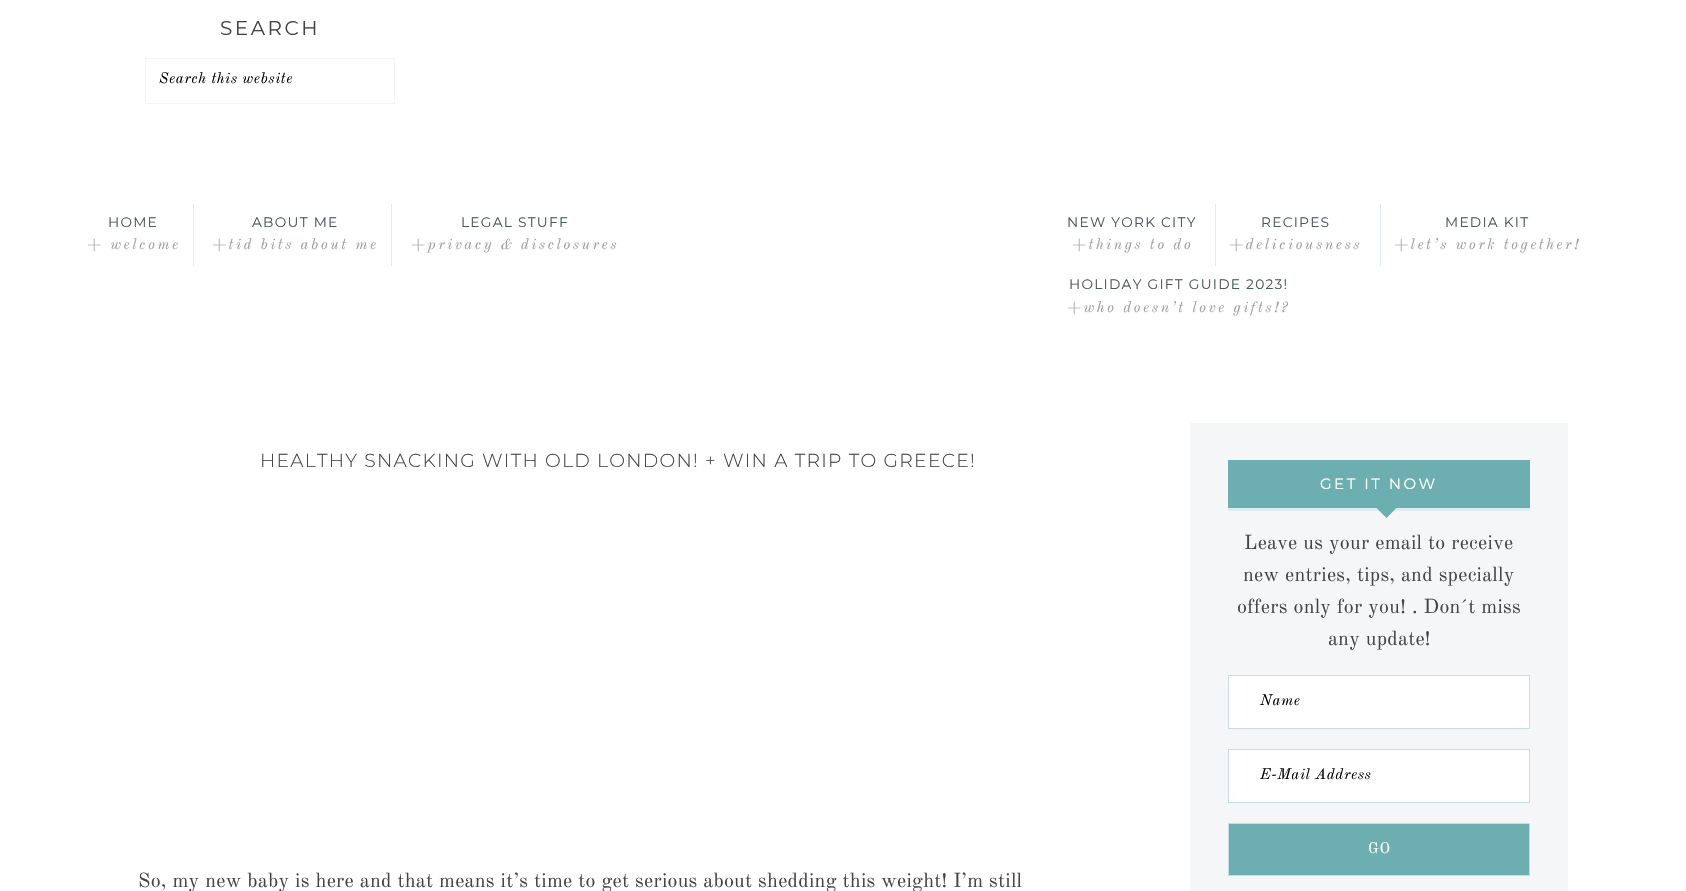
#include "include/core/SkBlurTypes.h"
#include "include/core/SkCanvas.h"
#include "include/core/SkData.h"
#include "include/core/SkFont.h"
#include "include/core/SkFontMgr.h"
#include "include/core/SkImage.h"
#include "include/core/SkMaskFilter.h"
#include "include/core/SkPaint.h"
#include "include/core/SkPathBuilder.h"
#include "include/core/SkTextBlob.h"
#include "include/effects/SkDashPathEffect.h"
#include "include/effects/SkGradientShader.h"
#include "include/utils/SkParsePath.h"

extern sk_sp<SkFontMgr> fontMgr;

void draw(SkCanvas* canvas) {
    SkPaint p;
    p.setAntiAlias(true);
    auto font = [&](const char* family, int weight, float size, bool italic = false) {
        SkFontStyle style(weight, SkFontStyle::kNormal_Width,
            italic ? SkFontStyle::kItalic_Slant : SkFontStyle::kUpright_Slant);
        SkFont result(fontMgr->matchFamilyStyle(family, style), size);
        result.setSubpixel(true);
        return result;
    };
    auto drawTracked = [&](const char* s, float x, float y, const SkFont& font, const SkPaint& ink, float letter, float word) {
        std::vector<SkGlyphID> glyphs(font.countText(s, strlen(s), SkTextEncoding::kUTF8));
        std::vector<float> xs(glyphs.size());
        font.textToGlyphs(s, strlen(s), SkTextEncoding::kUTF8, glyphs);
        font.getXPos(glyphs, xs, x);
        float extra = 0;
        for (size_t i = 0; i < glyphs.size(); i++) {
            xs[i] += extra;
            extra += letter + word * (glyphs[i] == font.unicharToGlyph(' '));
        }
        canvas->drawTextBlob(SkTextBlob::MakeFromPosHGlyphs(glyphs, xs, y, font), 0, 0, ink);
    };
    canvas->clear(0xFFFFFFFF);
    auto font1 = font("Montserrat", 400, 20);
    p.setColor(0xFF444444);
    drawTracked("SEARCH", 220, 35, font1, p, 2.5f, 0);
    p.setStyle(SkPaint::kStroke_Style);
    p.setStrokeWidth(1);
    p.setColor(0xFFF6F3F3);
    canvas->drawRect(SkRect::MakeLTRB(145.5f, 58.5f, 394.5f, 103.5f), p);
    auto font2 = font("Old Standard TT", 400, 15, true);
    p.setStyle(SkPaint::kFill_Style);
    p.setColor(0xFF000000);
    drawTracked("Search this website", 159, 83, font2, p, 0.6f, 0);
    p.setColor(0xFFDBEDF3);
    canvas->drawRect(SkRect::MakeLTRB(193, 204, 194, 266), p);
    auto font3 = font("Montserrat", 400, 13.75f);
    p.setColor(0xFF49595B);
    drawTracked("HOME", 108, 227, font3, p, 1.25f, 0);
    p.setColor(0xFF9D9D9D);
    drawTracked("+ welcome", 87, 249, font2, p, 2.5f, 0);
    p.setColor(0xFFDBEDF3);
    canvas->drawRect(SkRect::MakeLTRB(391, 204, 392, 266), p);
    p.setColor(0xFF49595B);
    drawTracked("ABOUT ME", 252, 227, font3, p, 1.25f, 0);
    p.setColor(0xFF9D9D9D);
    drawTracked("+tid bits about me", 212, 249, font2, p, 2.5f, 0);
    p.setColor(0xFF49595B);
    drawTracked("LEGAL STUFF", 461, 227, font3, p, 1.25f, 0);
    p.setColor(0xFF9D9D9D);
    drawTracked("+privacy & disclosures", 411, 249, font2, p, 2.5f, 0);
    p.setColor(0xFF49595B);
    drawTracked("NEW YORK CITY", 1067, 227, font3, p, 1.25f, 0);
    p.setColor(0xFF9D9D9D);
    drawTracked("+things to do", 1072, 249, font2, p, 2.5f, 0);
    p.setColor(0xFFDBEDF3);
    canvas->drawRect(SkRect::MakeLTRB(1215, 204, 1216, 266), p);
    p.setColor(0xFF49595B);
    drawTracked("RECIPES", 1261, 227, font3, p, 1.25f, 0);
    p.setColor(0xFF9D9D9D);
    drawTracked("+deliciousness", 1229, 249, font2, p, 2.5f, 0);
    p.setColor(0xFFDBEDF3);
    canvas->drawRect(SkRect::MakeLTRB(1380, 204, 1381, 266), p);
    p.setColor(0xFF49595B);
    drawTracked("MEDIA KIT", 1445, 227, font3, p, 1.25f, 0);
    p.setColor(0xFF9D9D9D);
    drawTracked("+let’s work together!", 1394, 249, font2, p, 2.5f, 0);
    p.setColor(0xFF49595B);
    drawTracked("HOLIDAY GIFT GUIDE 2023!", 1069, 289, font3, p, 1.25f, 0);
    p.setColor(0xFF9D9D9D);
    drawTracked("+who doesn’t love gifts!?", 1067, 312, font2, p, 2.5f, 0);
    auto font4 = font("Montserrat", 300, 18.75f);
    p.setColor(0xFF444444);
    drawTracked("HEALTHY SNACKING WITH OLD LONDON! + WIN A TRIP TO GREECE!", 260, 467, font4, p, 1.25f, 0);
    auto font5 = font("Old Standard TT", 400, 20);
    drawTracked("So, my new baby is here and that means it’s time to get serious about shedding this weight! I’m still", 138, 887, font5, p, 0.24f, 0);
    {
        const struct { float l, t, r, b; SkColor color; } items[] = {
            {1190, 423, 1568, 891, 0xFFF5F6F7},
            {1228, 460, 1530, 508, 0xFF6DAFB1},
            {1228, 508, 1530, 511, 0xFFDBEDF3},
        };
        for (auto [l, t, r, b, color] : items) {
            p.setColor(color);
            canvas->drawRect(SkRect::MakeLTRB(l, t, r, b), p);
        }
    }
    auto font6 = font("Montserrat", 400, 15);
    p.setColor(0xFFFFFFFF);
    drawTracked("GET IT NOW", 1320, 489, font6, p, 2.5f, 0);
    p.setColor(0xFF6DAFB1);
    canvas->drawPath(SkPathBuilder().moveTo(1386.5f, 496.5f).lineTo(1397, 507.5f).lineTo(1386.5f, 518).lineTo(1376, 507.5f).close().detach(), p);
    p.setColor(0xFF444444);
    {
        const struct { const char* s; float x, y; } items[] = {
            {"Leave us your email to receive", 1244, 549},
            {"new entries, tips, and specially", 1243, 581},
            {"offers only for you! . Don´t miss", 1237, 613},
            {"any update!", 1328, 645},
        };
        for (auto [s, x, y] : items) {
            drawTracked(s, x, y, font5, p, 0.24f, 0);
        }
    }
    p.setColor(0xFFFFFFFF);
    canvas->drawRect(SkRect::MakeLTRB(1228.5f, 675.5f, 1529.5f, 728.5f), p);
    p.setStyle(SkPaint::kStroke_Style);
    p.setColor(0xFFC7DEE1);
    canvas->drawRect(SkRect::MakeLTRB(1228.5f, 675.5f, 1529.5f, 728.5f), p);
    p.setStyle(SkPaint::kFill_Style);
    p.setColor(0xFF000000);
    drawTracked("Name", 1260, 705, font2, p, 0.6f, 0);
    p.setColor(0xFFFFFFFF);
    canvas->drawRect(SkRect::MakeLTRB(1228.5f, 749.5f, 1529.5f, 802.5f), p);
    p.setStyle(SkPaint::kStroke_Style);
    p.setColor(0xFFC7DEE1);
    canvas->drawRect(SkRect::MakeLTRB(1228.5f, 749.5f, 1529.5f, 802.5f), p);
    p.setStyle(SkPaint::kFill_Style);
    p.setColor(0xFF000000);
    drawTracked("E-Mail Address", 1260, 779, font2, p, 0.6f, 0);
    p.setColor(0xFF6DAFB1);
    canvas->drawRect(SkRect::MakeLTRB(1228.5f, 823.5f, 1529.5f, 875.5f), p);
    p.setStyle(SkPaint::kStroke_Style);
    p.setColor(0xFFC7DEE1);
    canvas->drawRect(SkRect::MakeLTRB(1228.5f, 823.5f, 1529.5f, 875.5f), p);
    auto font7 = font("Old Standard TT", 400, 15);
    p.setStyle(SkPaint::kFill_Style);
    p.setColor(0xFFFFFFFF);
    drawTracked("GO", 1368, 853, font7, p, 0.6f, 0);
}
